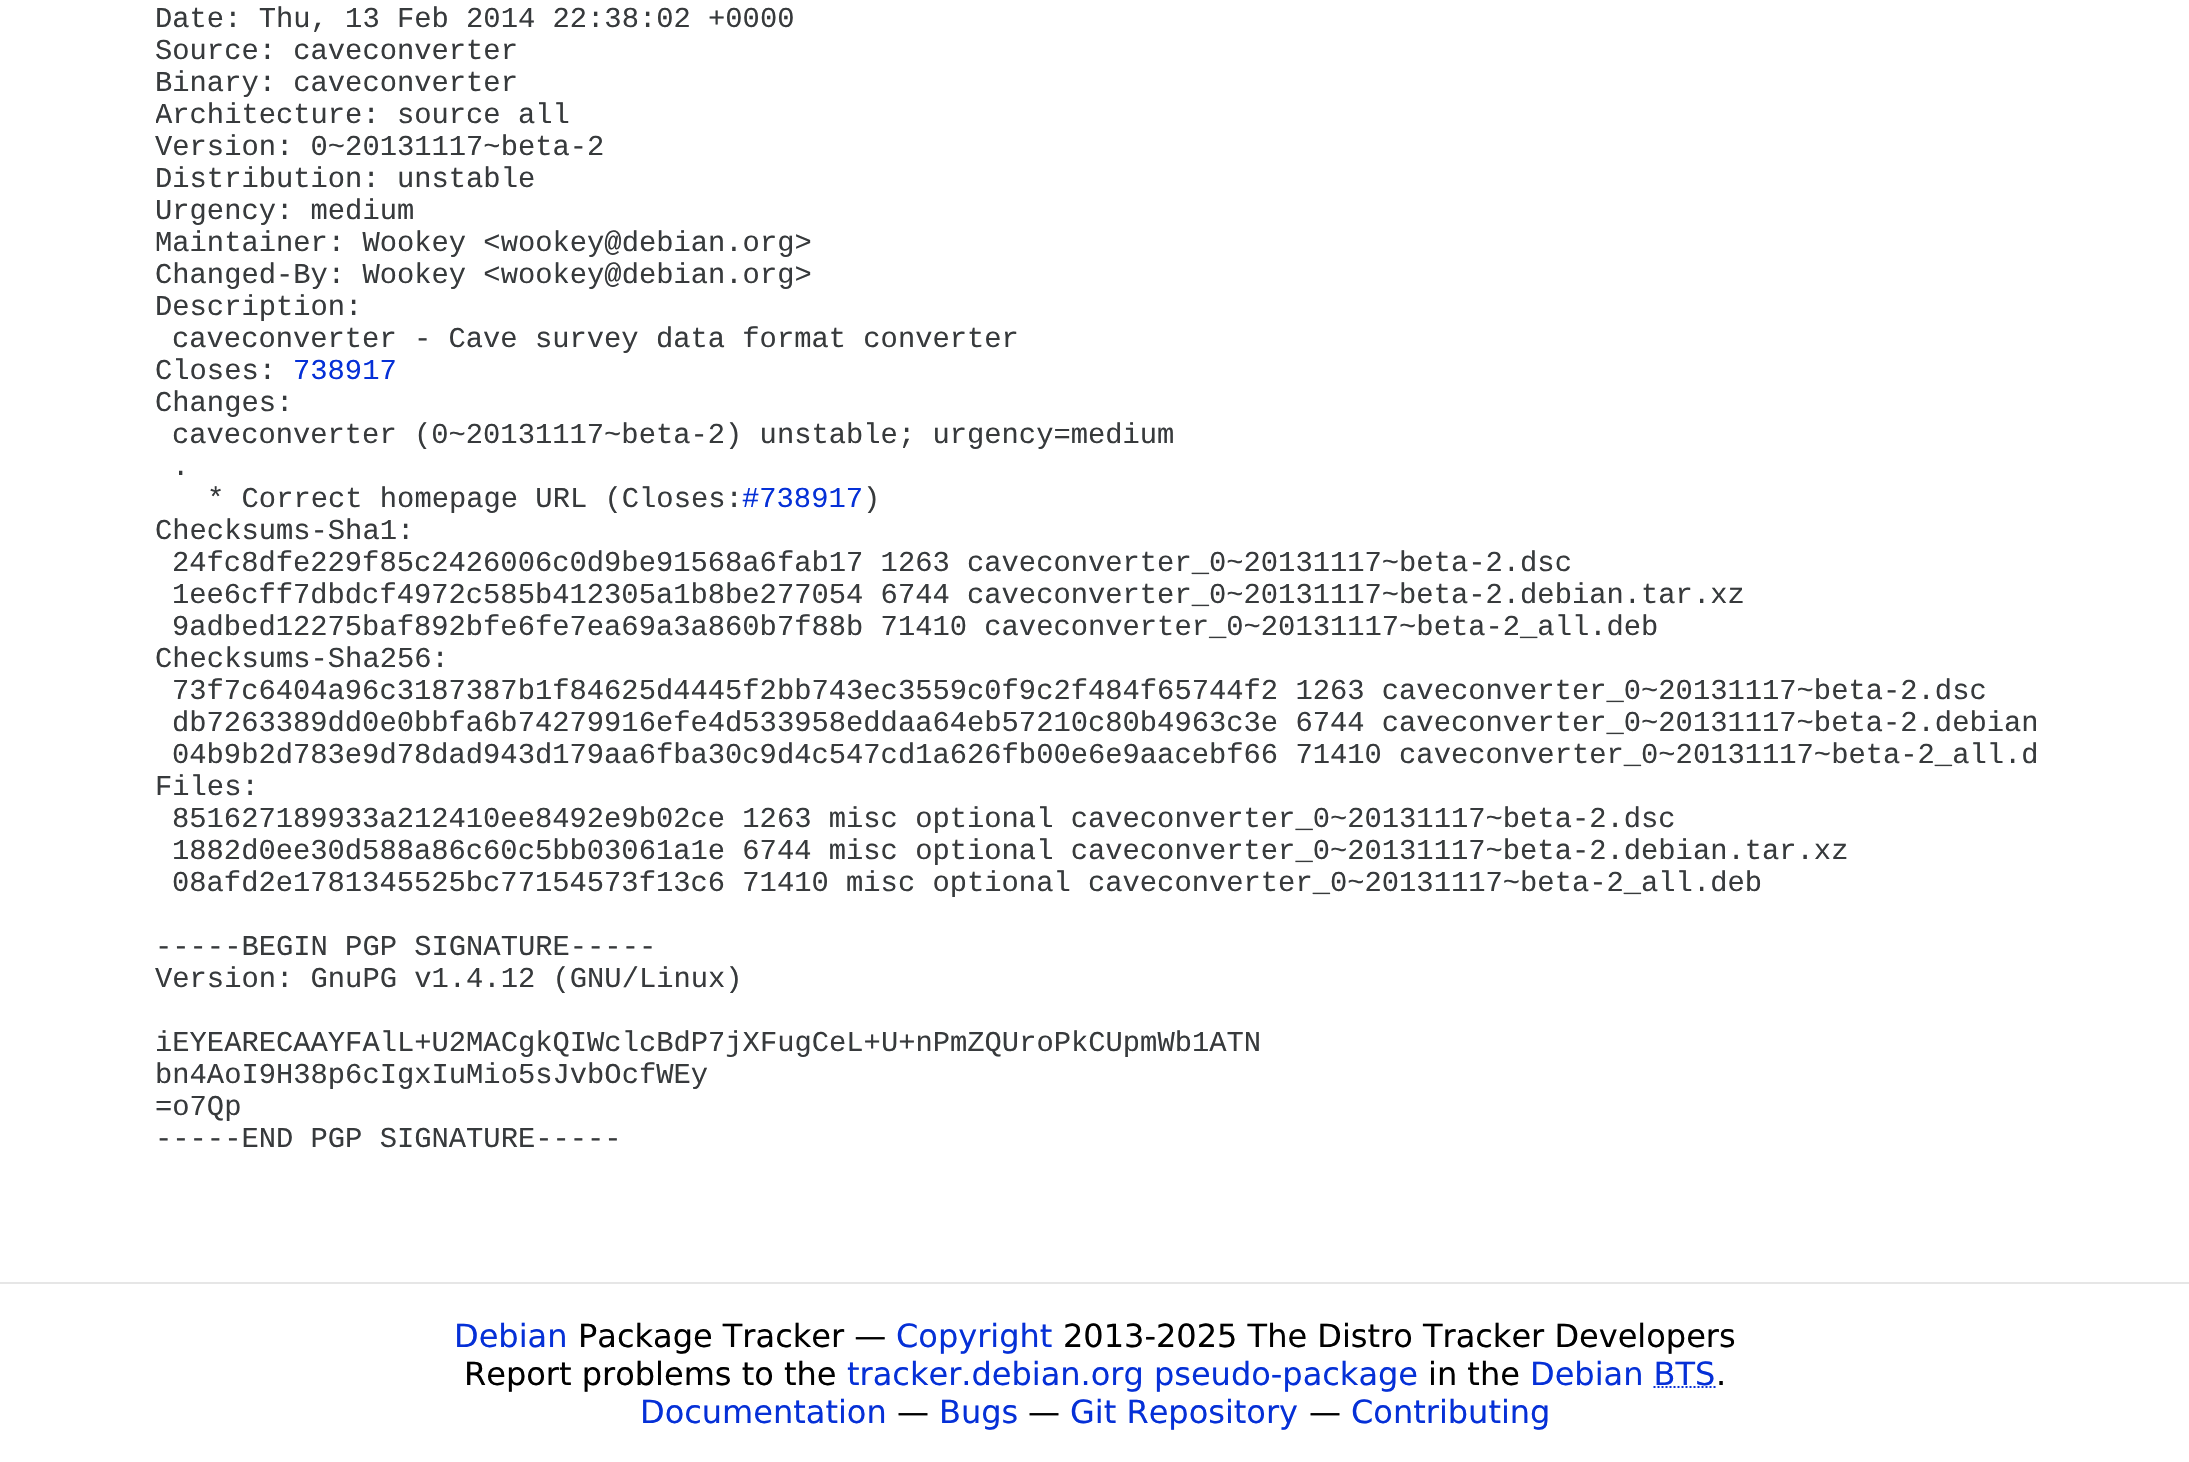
#include "include/core/SkBlurTypes.h"
#include "include/core/SkCanvas.h"
#include "include/core/SkData.h"
#include "include/core/SkFont.h"
#include "include/core/SkFontMgr.h"
#include "include/core/SkImage.h"
#include "include/core/SkMaskFilter.h"
#include "include/core/SkPaint.h"
#include "include/core/SkPathBuilder.h"
#include "include/core/SkTextBlob.h"
#include "include/effects/SkDashPathEffect.h"
#include "include/effects/SkGradientShader.h"
#include "include/utils/SkParsePath.h"

extern sk_sp<SkFontMgr> fontMgr;

void draw(SkCanvas* canvas) {
    SkPaint p;
    p.setAntiAlias(true);
    auto font = [&](const char* family, int weight, float size, bool italic = false) {
        SkFontStyle style(weight, SkFontStyle::kNormal_Width,
            italic ? SkFontStyle::kItalic_Slant : SkFontStyle::kUpright_Slant);
        SkFont result(fontMgr->matchFamilyStyle(family, style), size);
        result.setSubpixel(true);
        return result;
    };
    canvas->clear(0xFFFFFFFF);
    auto font1 = font("Liberation Mono", 400, 28.8f);
    p.setColor(0xFF373A3C);
    {
        const struct { const char* s; float x, y; } items[] = {
            {"Date: Thu, 13 Feb 2014 22:38:02 +0000", 155, 27},
            {"Source: caveconverter", 155, 59},
            {"Binary: caveconverter", 155, 91},
        };
        for (auto [s, x, y] : items) {
            canvas->drawString(s, x, y, font1, p);
        }
    }
    canvas->save();
    canvas->clipRect(SkRect::MakeLTRB(156, 0, 2036, 1218));
    canvas->drawString("Architecture: source all", 155, 123, font1, p);
    canvas->restore();
    {
        const struct { const char* s; float x, y; } items[] = {
            {"Version: 0~20131117~beta-2", 155, 155},
            {"Distribution: unstable", 155, 187},
            {"Urgency: medium", 155, 219},
            {"Maintainer: Wookey <wookey@debian.org>", 155, 251},
            {"Changed-By: Wookey <wookey@debian.org>", 155, 283},
            {"Description:", 155, 315},
            {"caveconverter - Cave survey data format converter", 172, 347},
            {"Closes:", 155, 379},
        };
        for (auto [s, x, y] : items) {
            canvas->drawString(s, x, y, font1, p);
        }
    }
    p.setColor(0xFF0530D7);
    canvas->drawString("738917", 293, 379, font1, p);
    p.setColor(0xFF373A3C);
    {
        const struct { const char* s; float x, y; } items[] = {
            {"Changes:", 155, 411},
            {"caveconverter (0~20131117~beta-2) unstable; urgency=medium", 172, 443},
            {".", 172, 475},
            {"* Correct homepage URL (Closes:", 207, 507},
        };
        for (auto [s, x, y] : items) {
            canvas->drawString(s, x, y, font1, p);
        }
    }
    p.setColor(0xFF0530D7);
    canvas->drawString("#738917", 742, 507, font1, p);
    p.setColor(0xFF373A3C);
    {
        const struct { const char* s; float x, y; } items[] = {
            {")", 863, 507},
            {"Checksums-Sha1:", 155, 539},
            {"24fc8dfe229f85c2426006c0d9be91568a6fab17 1263 caveconverter_0~20131117~beta-2.dsc", 172, 571},
            {"1ee6cff7dbdcf4972c585b412305a1b8be277054 6744 caveconverter_0~20131117~beta-2.debian.tar.xz", 172, 603},
            {"9adbed12275baf892bfe6fe7ea69a3a860b7f88b 71410 caveconverter_0~20131117~beta-2_all.deb", 172, 635},
            {"Checksums-Sha256:", 155, 667},
            {"73f7c6404a96c3187387b1f84625d4445f2bb743ec3559c0f9c2f484f65744f2 1263 caveconverter_0~20131117~beta-2.dsc", 172, 699},
            {"db7263389dd0e0bbfa6b74279916efe4d533958eddaa64eb57210c80b4963c3e 6744 caveconverter_0~20131117~beta-2.debian", 172, 731},
            {"04b9b2d783e9d78dad943d179aa6fba30c9d4c547cd1a626fb00e6e9aacebf66 71410 caveconverter_0~20131117~beta-2_all.d", 172, 763},
            {"Files:", 155, 795},
            {"851627189933a212410ee8492e9b02ce 1263 misc optional caveconverter_0~20131117~beta-2.dsc", 172, 827},
            {"1882d0ee30d588a86c60c5bb03061a1e 6744 misc optional caveconverter_0~20131117~beta-2.debian.tar.xz", 172, 859},
            {"08afd2e1781345525bc77154573f13c6 71410 misc optional caveconverter_0~20131117~beta-2_all.deb", 172, 891},
            {"-----BEGIN PGP SIGNATURE-----", 155, 955},
            {"Version: GnuPG v1.4.12 (GNU/Linux)", 155, 987},
            {"iEYEARECAAYFAlL+U2MACgkQIWclcBdP7jXFugCeL+U+nPmZQUroPkCUpmWb1ATN", 155, 1051},
            {"bn4AoI9H38p6cIgxIuMio5sJvbOcfWEy", 155, 1083},
            {"=o7Qp", 155, 1115},
            {"-----END PGP SIGNATURE-----", 155, 1147},
        };
        for (auto [s, x, y] : items) {
            canvas->drawString(s, x, y, font1, p);
        }
    }
    p.setColor(0xFFE6E6E6);
    canvas->drawRect(SkRect::MakeLTRB(0, 1282, 2189, 1284), p);
    auto font2 = font("DejaVu Sans", 400, 32);
    p.setColor(0xFF0530D7);
    canvas->drawString("Debian", 454, 1347, font2, p);
    p.setColor(0xFF000000);
    canvas->drawString("Package Tracker —", 578, 1347, font2, p);
    p.setColor(0xFF0530D7);
    canvas->drawString("Copyright", 896, 1347, font2, p);
    p.setColor(0xFF000000);
    canvas->drawString("2013-2025 The Distro Tracker Developers", 1063, 1347, font2, p);
    canvas->drawString("Report problems to the", 464, 1385, font2, p);
    p.setColor(0xFF0530D7);
    canvas->drawString("tracker.debian.org pseudo-package", 847, 1385, font2, p);
    p.setColor(0xFF000000);
    canvas->drawString("in the", 1428, 1385, font2, p);
    p.setColor(0xFF0530D7);
    canvas->drawString("Debian BTS", 1530, 1385, font2, p);
    p.setStyle(SkPaint::kStroke_Style);
    p.setStrokeWidth(2);
    p.setPathEffect(SkDashPathEffect::Make({{2, 2}}, 0));
    canvas->drawPath(SkPathBuilder().moveTo(1653.5f, 1387).lineTo(1715.5f, 1387).detach(), p);
    p.setPathEffect(nullptr);
    p.setStyle(SkPaint::kFill_Style);
    p.setColor(0xFF000000);
    canvas->drawString(".", 1716, 1385, font2, p);
    p.setColor(0xFF0530D7);
    canvas->drawString("Documentation", 640, 1423, font2, p);
    p.setColor(0xFF000000);
    canvas->drawString("—", 897, 1423, font2, p);
    p.setColor(0xFF0530D7);
    canvas->drawString("Bugs", 939, 1423, font2, p);
    p.setColor(0xFF000000);
    canvas->drawString("—", 1028, 1423, font2, p);
    p.setColor(0xFF0530D7);
    canvas->drawString("Git Repository", 1070, 1423, font2, p);
    p.setColor(0xFF000000);
    canvas->drawString("—", 1309, 1423, font2, p);
    p.setColor(0xFF0530D7);
    canvas->drawString("Contributing", 1351, 1423, font2, p);
}
